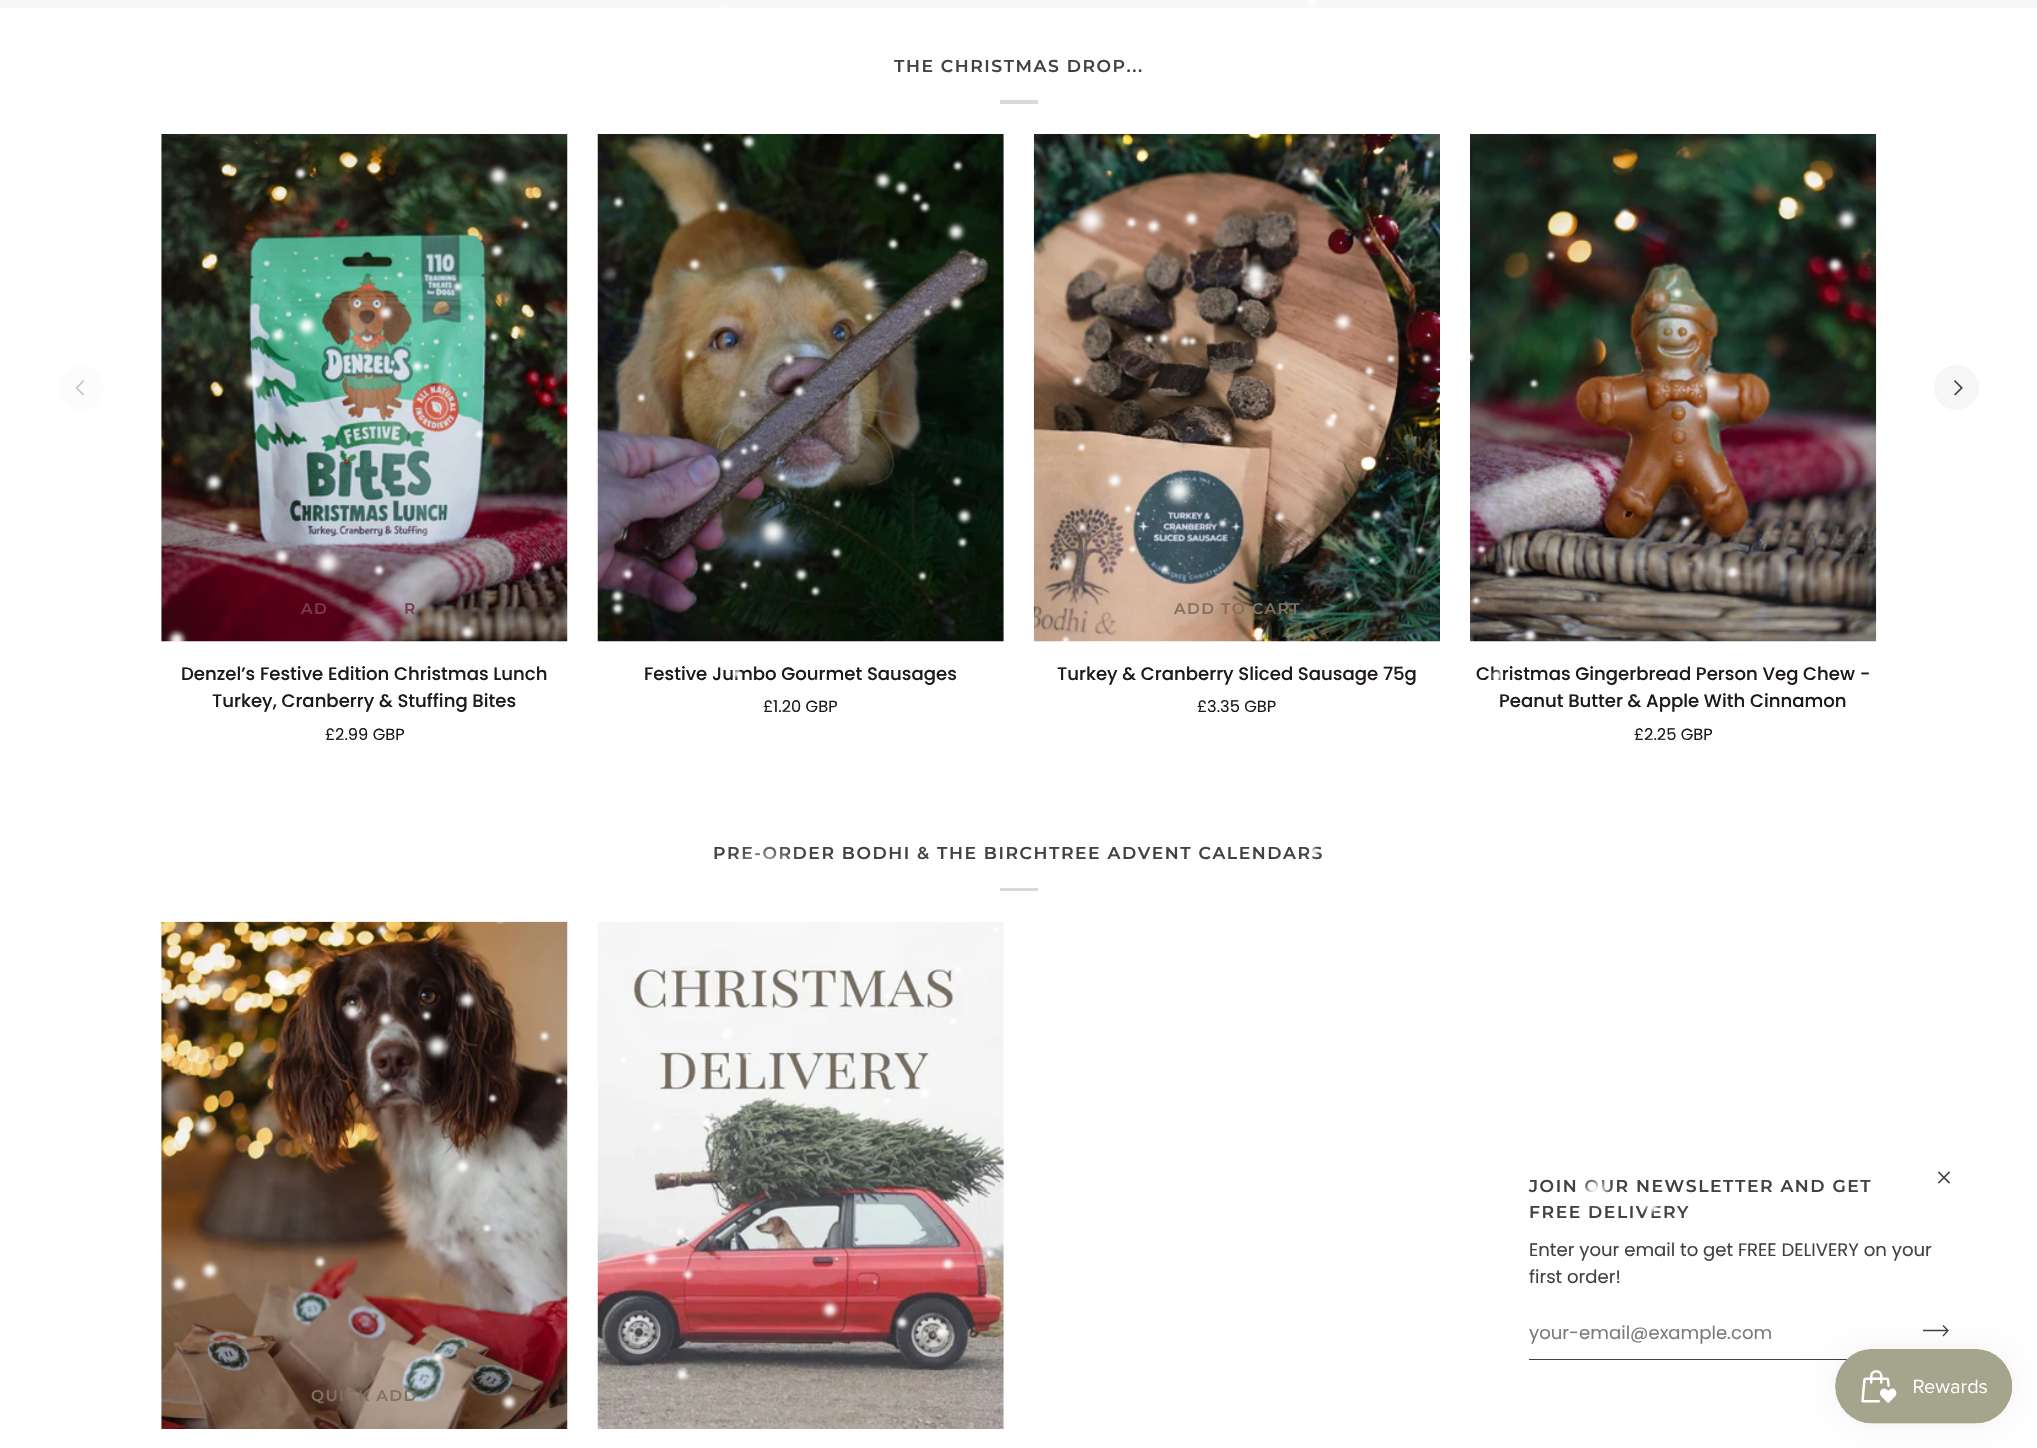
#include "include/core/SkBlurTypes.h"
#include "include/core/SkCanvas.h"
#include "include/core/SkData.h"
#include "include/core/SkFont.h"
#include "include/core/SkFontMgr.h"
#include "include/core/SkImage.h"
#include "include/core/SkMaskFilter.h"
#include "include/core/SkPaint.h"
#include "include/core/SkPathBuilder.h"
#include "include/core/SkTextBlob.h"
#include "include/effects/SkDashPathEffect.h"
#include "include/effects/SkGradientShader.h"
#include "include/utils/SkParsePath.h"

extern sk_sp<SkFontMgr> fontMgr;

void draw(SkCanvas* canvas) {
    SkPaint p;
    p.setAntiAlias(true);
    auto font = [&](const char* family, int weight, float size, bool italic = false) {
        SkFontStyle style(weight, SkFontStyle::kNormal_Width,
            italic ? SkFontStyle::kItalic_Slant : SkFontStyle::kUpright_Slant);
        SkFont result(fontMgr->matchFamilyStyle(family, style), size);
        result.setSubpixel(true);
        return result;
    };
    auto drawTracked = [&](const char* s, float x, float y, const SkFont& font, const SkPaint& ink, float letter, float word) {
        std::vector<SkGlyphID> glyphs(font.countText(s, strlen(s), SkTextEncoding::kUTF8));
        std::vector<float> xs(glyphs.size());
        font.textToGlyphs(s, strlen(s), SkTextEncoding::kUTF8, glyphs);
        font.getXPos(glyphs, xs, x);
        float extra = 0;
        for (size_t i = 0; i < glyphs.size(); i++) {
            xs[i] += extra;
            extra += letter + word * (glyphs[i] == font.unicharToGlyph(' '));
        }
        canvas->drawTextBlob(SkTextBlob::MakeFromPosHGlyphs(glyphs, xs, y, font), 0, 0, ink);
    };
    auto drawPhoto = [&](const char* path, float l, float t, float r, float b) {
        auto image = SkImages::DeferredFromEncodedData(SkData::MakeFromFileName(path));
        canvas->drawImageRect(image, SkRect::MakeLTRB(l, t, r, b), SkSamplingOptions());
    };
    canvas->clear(0xFFFFFFFF);
    p.setColor(0xFFF7F7F7);
    canvas->drawRect(SkRect::MakeLTRB(0, 0, 2037, 8), p);
    auto font1 = font("Montserrat", 600, 17.2f);
    p.setColor(0xFF424242);
    drawTracked("THE CHRISTMAS DROP...", 894, 72, font1, p, 1.55f, 0);
    p.setColor(0xFFD9D9D9);
    canvas->drawRect(SkRect::MakeLTRB(1000, 100, 1038, 104), p);
    drawPhoto("media/4.png", 161, 134, 568, 642);
    auto font2 = font("Montserrat", 600, 15.5f);
    p.setColor(0xFF763C4D);
    drawTracked("AD", 301, 614, font2, p, 1.4f, 0);
    drawTracked("R", 404, 614, font2, p, 1.4f, 0);
    auto font3 = font("Poppins", 500, 18.1f);
    p.setColor(0xFF1F1919);
    canvas->drawString("Denzel’s Festive Edition Christmas Lunch", 181, 680, font3, p);
    canvas->drawString("Turkey, Cranberry & Stuffing Bites", 212, 707, font3, p);
    auto font4 = font("Poppins", 400, 16.25f);
    canvas->drawString("£2.99 GBP", 325, 740, font4, p);
    drawPhoto("media/5.png", 597, 134, 1004, 642);
    canvas->drawString("Festive Jumbo Gourmet Sausages", 644, 680, font3, p);
    canvas->drawString("£1.20 GBP", 763, 712, font4, p);
    drawPhoto("media/6.png", 1033, 134, 1440, 642);
    p.setColor(0xFF83705F);
    drawTracked("ADD TO CART", 1174, 614, font2, p, 1.4f, 0);
    p.setColor(0xFF1F1919);
    canvas->drawString("Turkey & Cranberry Sliced Sausage 75g", 1057, 680, font3, p);
    canvas->drawString("£3.35 GBP", 1197, 712, font4, p);
    drawPhoto("media/7.png", 1470, 134, 1877, 642);
    canvas->drawString("Christmas Gingerbread Person Veg Chew -", 1476, 680, font3, p);
    canvas->drawString("Peanut Butter & Apple With Cinnamon", 1499, 707, font3, p);
    canvas->drawString("£2.25 GBP", 1634, 740, font4, p);
    p.setColor(0xFF424242);
    drawTracked("PRE-ORDER BODHI & THE BIRCHTREE ADVENT CALENDARS", 713, 859, font1, p, 1.55f, 0);
    p.setColor(0xFFD9D9D9);
    canvas->drawRect(SkRect::MakeLTRB(1000, 888, 1038, 891), p);
    drawPhoto("media/8.png", 161, 921, 568, 1429);
    p.setColor(0xFF83705F);
    drawTracked("QUICK ADD", 311, 1401, font2, p, 1.4f, 0);
    drawPhoto("media/9.png", 597, 922, 1004, 1429);
    p.setColor(0xFF424242);
    drawTracked("JOIN OUR NEWSLETTER AND GET", 1529, 1192, font1, p, 1.55f, 0);
    drawTracked("FREE DELIVERY", 1529, 1218, font1, p, 1.55f, 0);
    auto font5 = font("Poppins", 400, 18.1f);
    canvas->drawString("Enter your email to get FREE DELIVERY on your", 1529, 1256, font5, p);
    canvas->drawString("first order!", 1529, 1283, font5, p);
    canvas->drawRect(SkRect::MakeLTRB(1529, 1359, 1847, 1360), p);
    p.setColor(0xFF7B7B7B);
    canvas->drawString("your-email@example.com", 1529, 1339, font5, p);
    drawPhoto("media/1.png", 165, 0, 1909, 1412);
    p.setColor(0xFFFCFCFC);
    canvas->drawCircle(81.5f, 387.5f, 22.5f, p);
    drawPhoto("media/2.png", 75, 380, 85, 395);
    p.setColor(0xFFF6F6F6);
    canvas->drawCircle(1956.5f, 387.5f, 22.5f, p);
    drawPhoto("media/3.png", 1954, 380, 1963, 395);
    p.setStyle(SkPaint::kStroke_Style);
    p.setStrokeWidth(1.7f);
    p.setStrokeCap(SkPaint::kSquare_Cap);
    p.setColor(0xFF424242);
    canvas->drawPath(SkPathBuilder().moveTo(1949, 1172.5f).lineTo(1939, 1182.5f).moveTo(1939, 1172.5f).lineTo(1949, 1182.5f).detach(), p);
    p.setStrokeWidth(1.3f);
    p.setStrokeCap(SkPaint::kButt_Cap);
    canvas->drawPath(SkPathBuilder().moveTo(1943, 1325.5f).lineTo(1948, 1330.5f).lineTo(1943, 1336).moveTo(1923, 1330.5f).lineTo(1948, 1330.5f).detach(), p);
    p.setStyle(SkPaint::kFill_Style);
    p.setColor(0x0D000000);
    p.setMaskFilter(SkMaskFilter::MakeBlur(kNormal_SkBlurStyle, 15.5f));
    canvas->drawRoundRect(SkRect::MakeLTRB(1835, 1349, 2013, 1424), 37.5f, 37.5f, p);
    p.setMaskFilter(nullptr);
    drawPhoto("media/10.png", 1835, 1349, 2013, 1424);
}
